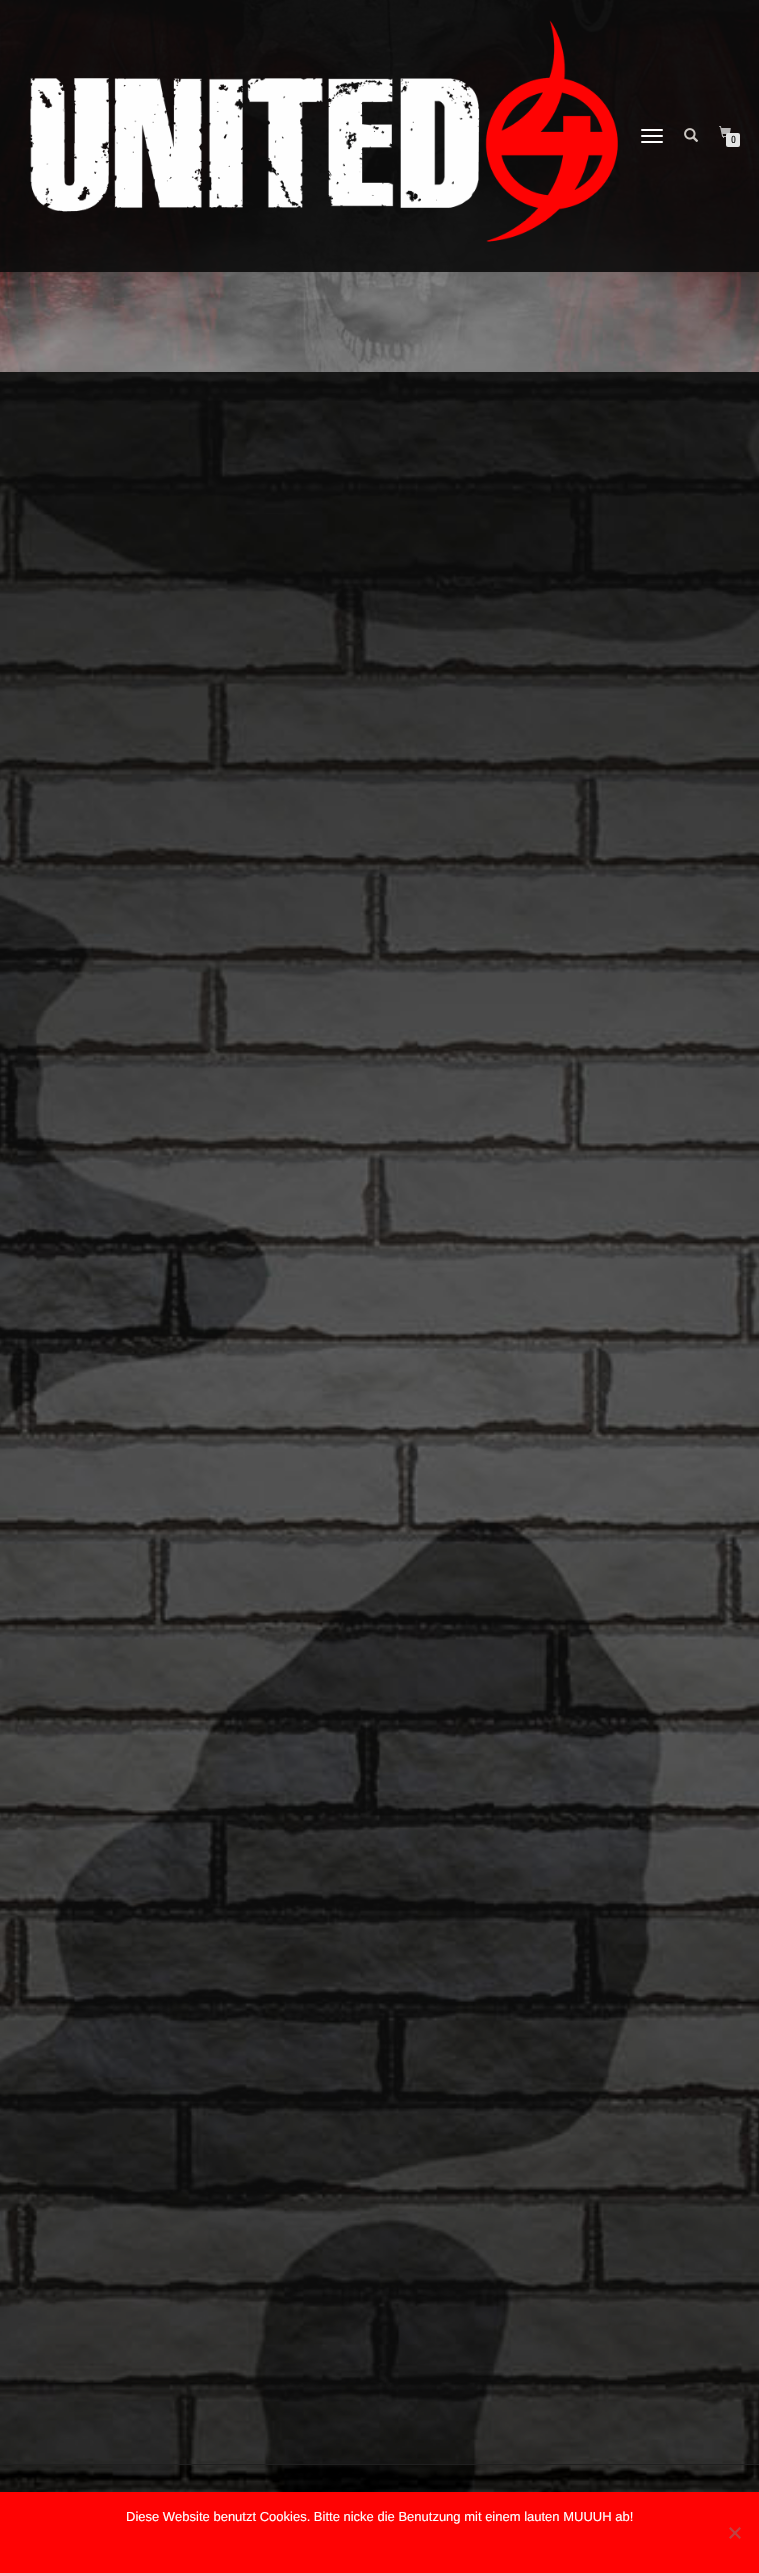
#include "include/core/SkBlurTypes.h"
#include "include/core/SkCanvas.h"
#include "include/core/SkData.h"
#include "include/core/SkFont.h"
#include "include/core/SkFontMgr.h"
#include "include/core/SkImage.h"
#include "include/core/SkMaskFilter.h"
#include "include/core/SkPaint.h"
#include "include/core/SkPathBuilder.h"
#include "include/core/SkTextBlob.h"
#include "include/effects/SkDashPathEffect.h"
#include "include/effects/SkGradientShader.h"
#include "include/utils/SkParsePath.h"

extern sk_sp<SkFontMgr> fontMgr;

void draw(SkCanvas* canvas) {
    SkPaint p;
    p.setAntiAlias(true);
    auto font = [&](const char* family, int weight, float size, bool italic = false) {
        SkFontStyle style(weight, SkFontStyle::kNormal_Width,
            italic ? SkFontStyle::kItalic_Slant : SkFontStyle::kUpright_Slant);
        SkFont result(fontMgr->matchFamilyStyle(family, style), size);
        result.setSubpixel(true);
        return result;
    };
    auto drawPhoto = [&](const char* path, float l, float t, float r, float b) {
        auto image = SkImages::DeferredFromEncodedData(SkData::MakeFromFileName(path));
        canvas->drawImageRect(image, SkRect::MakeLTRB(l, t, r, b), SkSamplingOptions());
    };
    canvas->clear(0xFFFFFFFF);
    drawPhoto("media/1.png", 0, 372, 759, 2492);
    drawPhoto("media/2.png", 0, 0, 759, 372);
    p.setColor(0xE60A0A0A);
    canvas->drawRect(SkRect::MakeLTRB(0, 0, 759, 272), p);
    drawPhoto("media/3.png", 30, 20, 618, 242);
    p.setColor(0xFFFFFFFF);
    canvas->drawRoundRect(SkRect::MakeLTRB(641, 129, 663, 131), 1, 1, p);
    canvas->drawRoundRect(SkRect::MakeLTRB(641, 135, 663, 137), 1, 1, p);
    canvas->drawRoundRect(SkRect::MakeLTRB(641, 141, 663, 143), 1, 1, p);
    drawPhoto("media/4.png", 684, 128, 699, 142);
    drawPhoto("media/5.png", 719, 126, 731, 138);
    p.setColor(0xFFE5E5E5);
    canvas->drawRoundRect(SkRect::MakeLTRB(726, 133, 740, 147), 2, 2, p);
    auto font1 = font("Roboto Condensed", 400, 10);
    p.setColor(0xFF111111);
    canvas->drawString("0", 731, 143, font1, p);
    p.setColor(0xFF202020);
    canvas->drawRect(SkRect::MakeLTRB(0, 2464, 759, 2465), p);
    p.setColor(0xFFFE0303);
    canvas->drawRect(SkRect::MakeLTRB(0, 2492, 759, 2573), p);
    auto font2 = font("Liberation Sans", 400, 13);
    p.setColor(0xFFFFFFFF);
    canvas->drawString("Diese Website benutzt Cookies. Bitte nicke die Benutzung mit einem lauten MUUUH ab!", 126, 2521, font2, p);
    p.setColor(0xFFBF4242);
    canvas->drawPath(SkPathBuilder().moveTo(739.5f, 2527).lineTo(741, 2528.5f).lineTo(730.5f, 2539).lineTo(729, 2537.5f).close().detach(), p);
    canvas->drawPath(SkPathBuilder().moveTo(729, 2528.5f).lineTo(730.5f, 2527).lineTo(741, 2537.5f).lineTo(739.5f, 2539).close().detach(), p);
}
